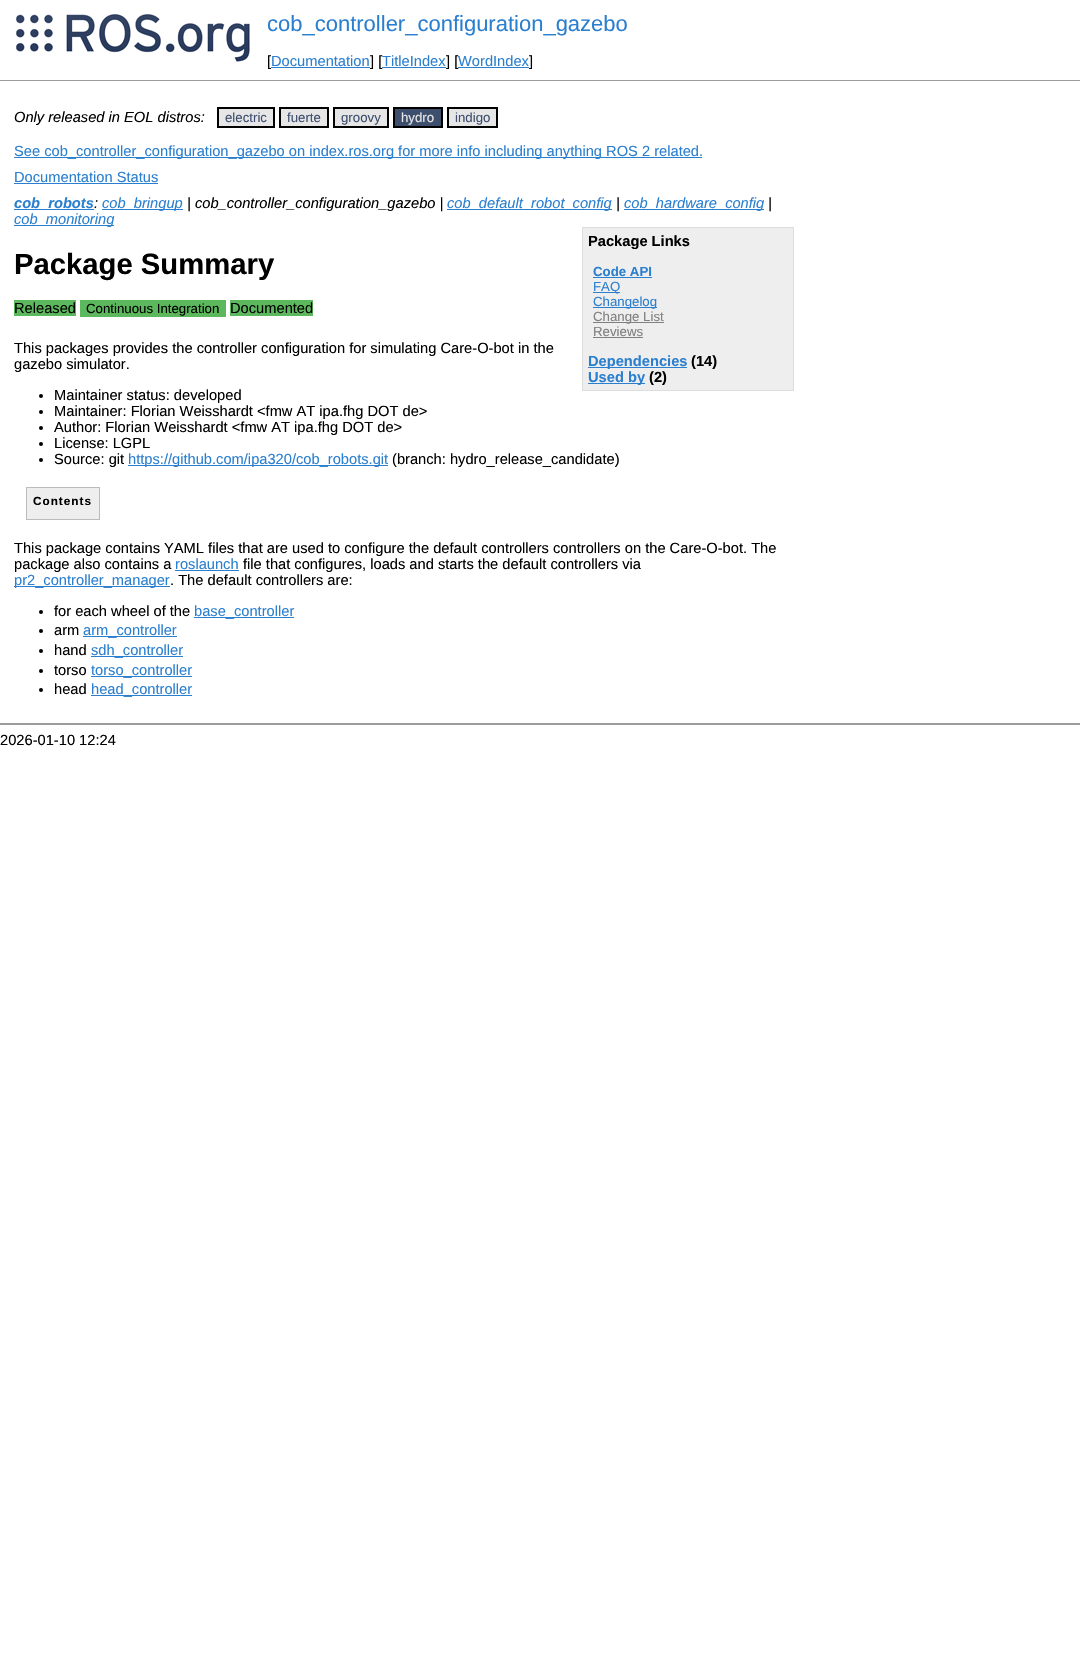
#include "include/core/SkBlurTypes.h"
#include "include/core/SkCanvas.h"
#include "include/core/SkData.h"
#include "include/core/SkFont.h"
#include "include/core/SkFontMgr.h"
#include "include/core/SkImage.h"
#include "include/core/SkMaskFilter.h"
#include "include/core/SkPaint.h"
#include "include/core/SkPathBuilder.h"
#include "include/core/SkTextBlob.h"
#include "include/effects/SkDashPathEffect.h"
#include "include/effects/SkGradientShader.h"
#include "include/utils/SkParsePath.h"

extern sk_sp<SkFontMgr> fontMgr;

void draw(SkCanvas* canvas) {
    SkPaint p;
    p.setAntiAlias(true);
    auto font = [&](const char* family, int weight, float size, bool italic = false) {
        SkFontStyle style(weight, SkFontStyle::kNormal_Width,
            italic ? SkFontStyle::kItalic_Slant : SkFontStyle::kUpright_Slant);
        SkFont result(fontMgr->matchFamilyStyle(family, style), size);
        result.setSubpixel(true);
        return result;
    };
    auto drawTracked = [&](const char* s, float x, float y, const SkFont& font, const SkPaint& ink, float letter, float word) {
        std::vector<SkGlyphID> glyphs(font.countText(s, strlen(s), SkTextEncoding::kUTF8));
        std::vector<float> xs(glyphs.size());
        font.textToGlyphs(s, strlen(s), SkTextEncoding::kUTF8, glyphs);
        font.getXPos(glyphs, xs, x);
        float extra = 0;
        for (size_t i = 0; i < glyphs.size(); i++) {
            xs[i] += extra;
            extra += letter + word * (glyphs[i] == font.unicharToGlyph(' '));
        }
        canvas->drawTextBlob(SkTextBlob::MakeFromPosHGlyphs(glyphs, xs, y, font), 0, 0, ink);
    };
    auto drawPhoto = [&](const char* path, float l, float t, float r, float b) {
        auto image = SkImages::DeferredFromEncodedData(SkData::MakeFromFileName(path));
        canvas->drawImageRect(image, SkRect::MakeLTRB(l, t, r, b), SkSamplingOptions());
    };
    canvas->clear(0xFFFFFFFF);
    drawPhoto("media/1.png", 16, 14, 250, 62);
    auto font1 = font("Liberation Sans", 400, 22);
    p.setColor(0xFF2B7FCF);
    canvas->drawString("cob_controller_configuration_gazebo", 267, 31, font1, p);
    auto font2 = font("Liberation Sans", 400, 14.67f);
    p.setColor(0xFF000000);
    canvas->drawString("[", 267, 66, font2, p);
    p.setColor(0xFF2B7FCF);
    canvas->drawString("Documentation", 271, 66, font2, p);
    canvas->drawRect(SkRect::MakeLTRB(271, 67, 370, 68), p);
    p.setColor(0xFF000000);
    canvas->drawString("] [", 370, 66, font2, p);
    p.setColor(0xFF2B7FCF);
    canvas->drawString("TitleIndex", 382, 66, font2, p);
    canvas->drawRect(SkRect::MakeLTRB(382, 67, 446, 68), p);
    p.setColor(0xFF000000);
    canvas->drawString("] [", 446, 66, font2, p);
    p.setColor(0xFF2B7FCF);
    canvas->drawString("WordIndex", 458, 66, font2, p);
    canvas->drawRect(SkRect::MakeLTRB(458, 67, 529, 68), p);
    p.setColor(0xFF000000);
    canvas->drawString("]", 529, 66, font2, p);
    p.setColor(0xFF9C9C9C);
    canvas->drawRect(SkRect::MakeLTRB(0, 80, 1080, 81), p);
    auto font3 = font("Liberation Sans", 400, 14.67f, true);
    p.setColor(0xFF000000);
    canvas->drawString("Only released in EOL distros:", 14, 122, font3, p);
    p.setColor(0xFFE6E6E6);
    canvas->drawRect(SkRect::MakeLTRB(218, 108, 274, 127), p);
    p.setStyle(SkPaint::kStroke_Style);
    p.setStrokeWidth(2);
    p.setColor(0xFF000000);
    canvas->drawRect(SkRect::MakeLTRB(218, 108, 274, 127), p);
    auto font4 = font("Liberation Sans", 400, 13.25f);
    p.setStyle(SkPaint::kFill_Style);
    p.setColor(0xFF3E4F6E);
    canvas->drawString("electric", 225, 122, font4, p);
    p.setColor(0xFFE6E6E6);
    canvas->drawRect(SkRect::MakeLTRB(280, 108, 328, 127), p);
    p.setStyle(SkPaint::kStroke_Style);
    p.setColor(0xFF000000);
    canvas->drawRect(SkRect::MakeLTRB(280, 108, 328, 127), p);
    p.setStyle(SkPaint::kFill_Style);
    p.setColor(0xFF3E4F6E);
    canvas->drawString("fuerte", 287, 122, font4, p);
    p.setColor(0xFFE6E6E6);
    canvas->drawRect(SkRect::MakeLTRB(334, 108, 388, 127), p);
    p.setStyle(SkPaint::kStroke_Style);
    p.setColor(0xFF000000);
    canvas->drawRect(SkRect::MakeLTRB(334, 108, 388, 127), p);
    p.setStyle(SkPaint::kFill_Style);
    p.setColor(0xFF3E4F6E);
    canvas->drawString("groovy", 341, 122, font4, p);
    canvas->drawRect(SkRect::MakeLTRB(394, 108, 442, 127), p);
    p.setStyle(SkPaint::kStroke_Style);
    p.setColor(0xFF000000);
    canvas->drawRect(SkRect::MakeLTRB(394, 108, 442, 127), p);
    p.setStyle(SkPaint::kFill_Style);
    p.setColor(0xFFE6E6E6);
    canvas->drawString("hydro", 401, 122, font4, p);
    canvas->drawRect(SkRect::MakeLTRB(448, 108, 497, 127), p);
    p.setStyle(SkPaint::kStroke_Style);
    p.setColor(0xFF000000);
    canvas->drawRect(SkRect::MakeLTRB(448, 108, 497, 127), p);
    p.setStyle(SkPaint::kFill_Style);
    p.setColor(0xFF3E4F6E);
    canvas->drawString("indigo", 455, 122, font4, p);
    p.setColor(0xFF2B7FCF);
    canvas->drawRect(SkRect::MakeLTRB(14, 157, 702, 158), p);
    canvas->drawString("See cob_controller_configuration_gazebo on index.ros.org for more info including anything ROS 2 related.", 14, 156, font2, p);
    canvas->drawString("Documentation Status", 14, 182, font2, p);
    canvas->drawRect(SkRect::MakeLTRB(14, 183, 158, 184), p);
    canvas->drawRect(SkRect::MakeLTRB(14, 209, 94, 210), p);
    auto font5 = font("Liberation Sans", 700, 14.67f, true);
    canvas->drawString("cob_robots", 14, 208, font5, p);
    p.setColor(0xFF000000);
    canvas->drawString(":", 94, 208, font3, p);
    p.setColor(0xFF2B7FCF);
    canvas->drawRect(SkRect::MakeLTRB(102, 209, 183, 210), p);
    canvas->drawString("cob_bringup", 102, 208, font3, p);
    p.setColor(0xFF000000);
    canvas->drawString("| cob_controller_configuration_gazebo |", 187, 208, font3, p);
    p.setColor(0xFF2B7FCF);
    canvas->drawRect(SkRect::MakeLTRB(447, 209, 612, 210), p);
    canvas->drawString("cob_default_robot_config", 447, 208, font3, p);
    p.setColor(0xFF000000);
    canvas->drawString("|", 616, 208, font3, p);
    p.setColor(0xFF2B7FCF);
    canvas->drawRect(SkRect::MakeLTRB(624, 209, 764, 210), p);
    canvas->drawString("cob_hardware_config", 624, 208, font3, p);
    p.setColor(0xFF000000);
    canvas->drawString("|", 768, 208, font3, p);
    p.setColor(0xFF2B7FCF);
    canvas->drawRect(SkRect::MakeLTRB(14, 225, 114, 226), p);
    canvas->drawString("cob_monitoring", 14, 224, font3, p);
    auto font6 = font("Liberation Sans", 700, 29.25f);
    p.setColor(0xFF000000);
    canvas->drawString("Package Summary", 14, 274, font6, p);
    p.setColor(0xFFEEEEEE);
    canvas->drawRect(SkRect::MakeLTRB(582.5f, 227.5f, 793.5f, 390.5f), p);
    p.setStyle(SkPaint::kStroke_Style);
    p.setStrokeWidth(1);
    p.setColor(0xFFDDDDDD);
    canvas->drawRect(SkRect::MakeLTRB(582.5f, 227.5f, 793.5f, 390.5f), p);
    auto font7 = font("Liberation Sans", 700, 14.67f);
    p.setStyle(SkPaint::kFill_Style);
    p.setColor(0xFF000000);
    canvas->drawString("Package Links", 588, 246, font7, p);
    auto font8 = font("Liberation Sans", 700, 13.25f);
    p.setColor(0xFF2B7FCF);
    canvas->drawString("Code API", 593, 276, font8, p);
    canvas->drawRect(SkRect::MakeLTRB(593, 277, 652, 278), p);
    canvas->drawRect(SkRect::MakeLTRB(593, 292, 620, 293), p);
    canvas->drawString("FAQ", 593, 291, font4, p);
    canvas->drawRect(SkRect::MakeLTRB(593, 307, 657, 308), p);
    canvas->drawString("Changelog", 593, 306, font4, p);
    p.setColor(0xFF808080);
    canvas->drawRect(SkRect::MakeLTRB(593, 322, 664, 323), p);
    canvas->drawString("Change List", 593, 321, font4, p);
    canvas->drawString("Reviews", 593, 336, font4, p);
    canvas->drawRect(SkRect::MakeLTRB(593, 337, 643, 338), p);
    p.setColor(0xFF2B7FCF);
    canvas->drawRect(SkRect::MakeLTRB(588, 367, 687, 368), p);
    canvas->drawString("Dependencies", 588, 366, font7, p);
    p.setColor(0xFF000000);
    canvas->drawString("(14)", 691, 366, font7, p);
    p.setColor(0xFF2B7FCF);
    canvas->drawRect(SkRect::MakeLTRB(588, 383, 645, 384), p);
    canvas->drawString("Used by", 588, 382, font7, p);
    p.setColor(0xFF000000);
    canvas->drawString("(2)", 649, 382, font7, p);
    p.setColor(0xFF5CB85C);
    canvas->drawRect(SkRect::MakeLTRB(14, 300, 76, 316), p);
    p.setColor(0xFF000000);
    canvas->drawString("Released", 14, 313, font2, p);
    p.setColor(0xFF5CB85C);
    canvas->drawRect(SkRect::MakeLTRB(80, 300, 226, 317), p);
    p.setColor(0xFF000000);
    canvas->drawString("Continuous Integration", 86, 313, font4, p);
    p.setColor(0xFF5CB85C);
    canvas->drawRect(SkRect::MakeLTRB(230, 300, 313, 316), p);
    p.setColor(0xFF000000);
    {
        const struct { const char* s; float x, y; } items[] = {
            {"Documented", 230, 313},
            {"This packages provides the controller configuration for simulating Care-O-bot in the", 14, 353},
            {"gazebo simulator.", 14, 369},
        };
        for (auto [s, x, y] : items) {
            canvas->drawString(s, x, y, font2, p);
        }
    }
    canvas->drawCircle(41, 396, 2, p);
    canvas->drawString("Maintainer status: developed", 54, 400, font2, p);
    canvas->drawCircle(41, 412, 2, p);
    canvas->drawString("Maintainer: Florian Weisshardt <fmw AT ipa.fhg DOT de>", 54, 416, font2, p);
    canvas->drawCircle(41, 428, 2, p);
    canvas->drawString("Author: Florian Weisshardt <fmw AT ipa.fhg DOT de>", 54, 432, font2, p);
    canvas->drawCircle(41, 444, 2, p);
    canvas->drawString("License: LGPL", 54, 448, font2, p);
    canvas->drawCircle(41, 460, 2, p);
    canvas->drawString("Source: git", 54, 464, font2, p);
    p.setColor(0xFF2B7FCF);
    canvas->drawRect(SkRect::MakeLTRB(128, 465, 388, 466), p);
    canvas->drawString("https://github.com/ipa320/cob_robots.git", 128, 464, font2, p);
    p.setColor(0xFF000000);
    canvas->drawString("(branch: hydro_release_candidate)", 392, 464, font2, p);
    p.setColor(0xFFEEEEEE);
    canvas->drawRect(SkRect::MakeLTRB(26.5f, 487.5f, 99.5f, 519.5f), p);
    p.setStyle(SkPaint::kStroke_Style);
    p.setColor(0xFFBBBBBB);
    canvas->drawRect(SkRect::MakeLTRB(26.5f, 487.5f, 99.5f, 519.5f), p);
    auto font9 = font("Liberation Sans", 700, 11.75f);
    p.setStyle(SkPaint::kFill_Style);
    p.setColor(0xFF000000);
    drawTracked("Contents", 33, 505, font9, p, 1, 0);
    canvas->drawString("This package contains YAML files that are used to configure the default controllers controllers on the Care-O-bot. The", 14, 553, font2, p);
    canvas->drawString("package also contains a", 14, 569, font2, p);
    p.setColor(0xFF2B7FCF);
    canvas->drawString("roslaunch", 175, 569, font2, p);
    canvas->drawRect(SkRect::MakeLTRB(175, 570, 239, 571), p);
    p.setColor(0xFF000000);
    canvas->drawString("file that configures, loads and starts the default controllers via", 243, 569, font2, p);
    p.setColor(0xFF2B7FCF);
    canvas->drawRect(SkRect::MakeLTRB(14, 586, 170, 587), p);
    canvas->drawString("pr2_controller_manager", 14, 585, font2, p);
    p.setColor(0xFF000000);
    canvas->drawString(". The default controllers are:", 170, 585, font2, p);
    canvas->drawCircle(41, 612, 2, p);
    canvas->drawString("for each wheel of the", 54, 616, font2, p);
    p.setColor(0xFF2B7FCF);
    canvas->drawRect(SkRect::MakeLTRB(194, 617, 294, 618), p);
    canvas->drawString("base_controller", 194, 616, font2, p);
    p.setColor(0xFF000000);
    canvas->drawCircle(41, 631, 2, p);
    canvas->drawString("arm", 54, 635, font2, p);
    p.setColor(0xFF2B7FCF);
    canvas->drawRect(SkRect::MakeLTRB(83, 636, 177, 637), p);
    canvas->drawString("arm_controller", 83, 635, font2, p);
    p.setColor(0xFF000000);
    canvas->drawCircle(41, 651, 2, p);
    canvas->drawString("hand", 54, 655, font2, p);
    p.setColor(0xFF2B7FCF);
    canvas->drawRect(SkRect::MakeLTRB(91, 656, 183, 657), p);
    canvas->drawString("sdh_controller", 91, 655, font2, p);
    p.setColor(0xFF000000);
    canvas->drawCircle(41, 671, 2, p);
    canvas->drawString("torso", 54, 675, font2, p);
    p.setColor(0xFF2B7FCF);
    canvas->drawRect(SkRect::MakeLTRB(91, 676, 192, 677), p);
    canvas->drawString("torso_controller", 91, 675, font2, p);
    p.setColor(0xFF000000);
    canvas->drawCircle(41, 690, 2, p);
    canvas->drawString("head", 54, 694, font2, p);
    p.setColor(0xFF2B7FCF);
    canvas->drawRect(SkRect::MakeLTRB(91, 695, 192, 696), p);
    canvas->drawString("head_controller", 91, 694, font2, p);
    p.setColor(0xFF9C9C9C);
    canvas->drawRect(SkRect::MakeLTRB(0, 723, 1080, 725), p);
    p.setColor(0xFF000000);
    canvas->drawString("2026-01-10 12:24", 0, 745, font2, p);
}
